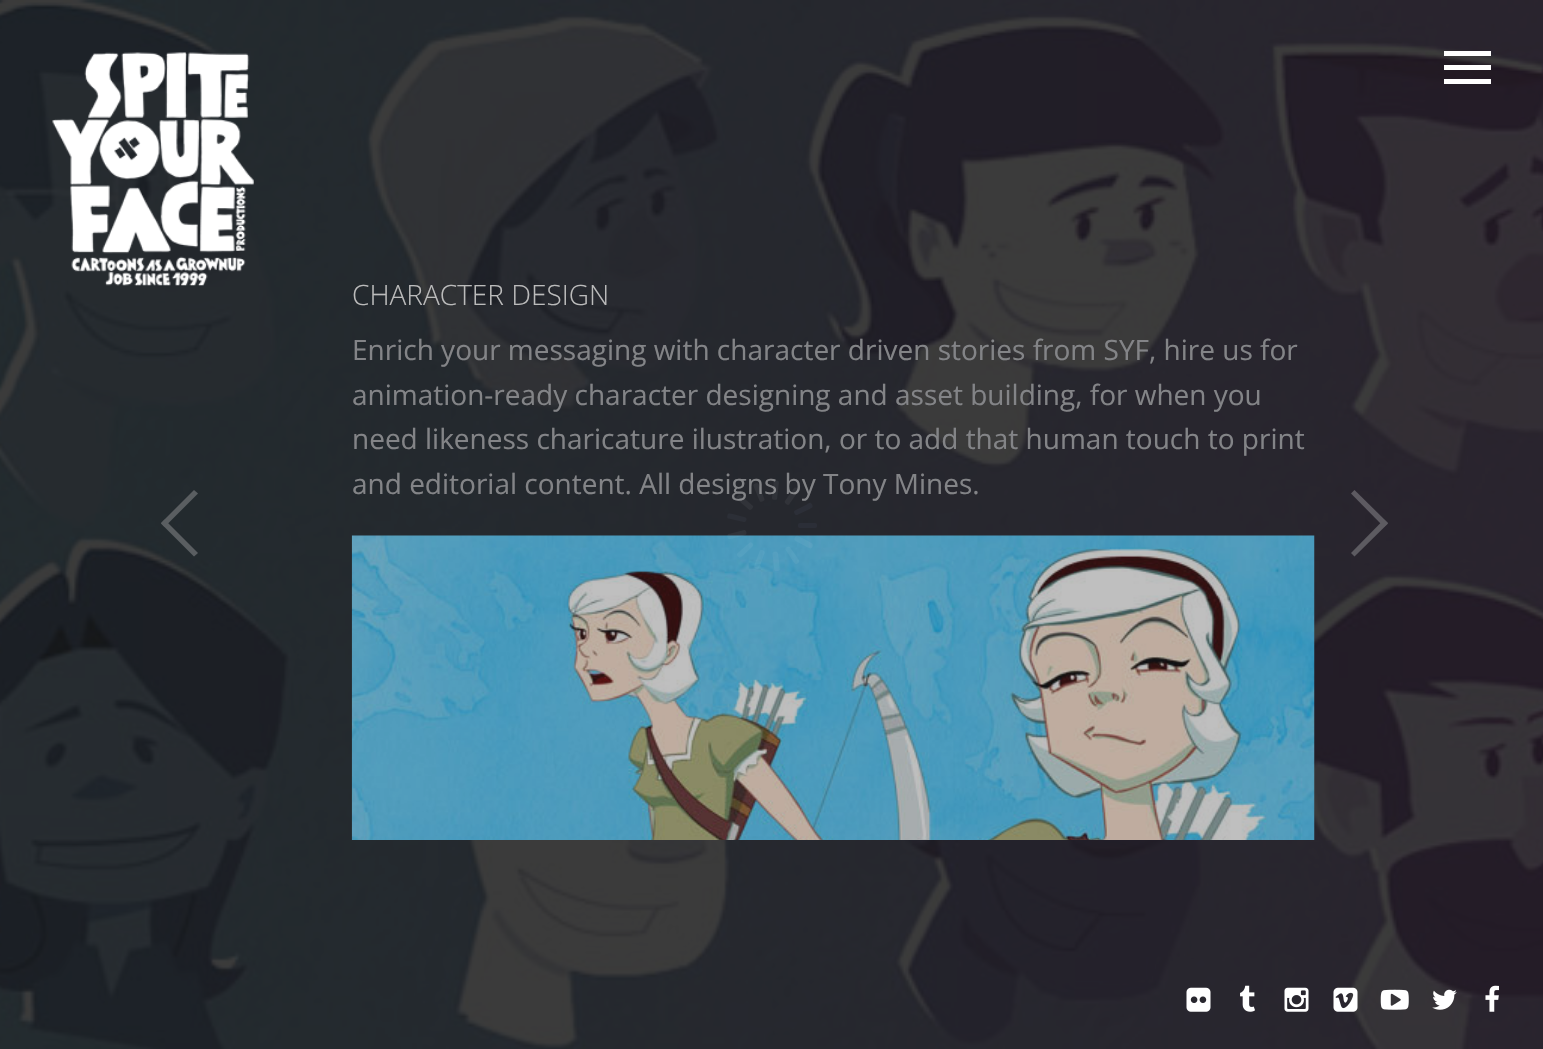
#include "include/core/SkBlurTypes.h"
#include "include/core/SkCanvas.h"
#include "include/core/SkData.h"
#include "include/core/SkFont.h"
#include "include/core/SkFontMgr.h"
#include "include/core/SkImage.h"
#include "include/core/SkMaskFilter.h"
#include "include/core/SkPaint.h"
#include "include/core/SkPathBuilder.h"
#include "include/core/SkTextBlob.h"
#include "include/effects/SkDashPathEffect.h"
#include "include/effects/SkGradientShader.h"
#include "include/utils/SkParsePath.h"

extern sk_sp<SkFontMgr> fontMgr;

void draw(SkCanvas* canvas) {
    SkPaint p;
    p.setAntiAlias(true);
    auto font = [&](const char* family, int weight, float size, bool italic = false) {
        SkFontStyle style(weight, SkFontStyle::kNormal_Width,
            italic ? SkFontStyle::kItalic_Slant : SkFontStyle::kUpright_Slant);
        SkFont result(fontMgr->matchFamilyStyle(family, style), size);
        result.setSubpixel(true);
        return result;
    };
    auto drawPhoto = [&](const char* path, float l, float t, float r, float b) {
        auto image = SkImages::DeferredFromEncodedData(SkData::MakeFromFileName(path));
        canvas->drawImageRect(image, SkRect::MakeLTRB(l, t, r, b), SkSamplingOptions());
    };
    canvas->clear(0xFFFFFFFF);
    drawPhoto("media/2.png", 0, 0, 1543, 1049);
    drawPhoto("media/1.png", 52, 52, 254, 286);
    {
        const struct { float l, t, r, b; SkColor color; } items[] = {
            {1444, 65, 1491, 70, 0xFFFFFFFF},
            {1444, 51, 1491, 56, 0xFFFFFFFF},
            {1444, 79, 1491, 84, 0xFFFFFFFF},
        };
        for (auto [l, t, r, b, color] : items) {
            p.setColor(color);
            canvas->drawRect(SkRect::MakeLTRB(l, t, r, b), p);
        }
    }
    auto font1 = font("Open Sans", 300, 28);
    p.setColor(0xFFBBBBBB);
    canvas->drawString("CHARACTER DESIGN", 352, 305, font1, p);
    auto font2 = font("Open Sans", 400, 28);
    p.setColor(0xFF838487);
    {
        const struct { const char* s; float x, y; } items[] = {
            {"Enrich your messaging with character driven stories from SYF, hire us for", 352, 360},
            {"animation-ready character designing and asset building, for when you", 352, 405},
            {"need likeness charicature ilustration, or to add that human touch to print", 352, 449},
            {"and editorial content. All designs by Tony Mines.", 352, 494},
        };
        for (auto [s, x, y] : items) {
            canvas->drawString(s, x, y, font2, p);
        }
    }
    drawPhoto("media/3.png", 351, 535, 1315, 840);
    p.setColor(0xFF5A5E61);
    canvas->drawPath(SkPathBuilder().moveTo(164.5f, 527).lineTo(161, 523).lineTo(194, 490).lineTo(198, 493.5f).close().detach(), p);
    canvas->drawPath(SkPathBuilder().moveTo(161, 523.5f).lineTo(164.5f, 519.5f).lineTo(198, 553).lineTo(194, 556.5f).close().detach(), p);
    p.setColor(0xFF5D5A61);
    canvas->drawPath(SkPathBuilder().moveTo(1388, 523).lineTo(1384, 527).lineTo(1351, 493.5f).lineTo(1354.5f, 490).close().detach(), p);
    p.setColor(0xFF5D5B61);
    canvas->drawPath(SkPathBuilder().moveTo(1384, 519.5f).lineTo(1388, 523.5f).lineTo(1354.5f, 556.5f).lineTo(1351, 553).close().detach(), p);
    p.setColor(0x0DFFFFFF);
    canvas->drawPath(SkPathBuilder().moveTo(749, 509.5f).lineTo(739, 501).cubicTo(737, 499, 735.5f, 498.5f, 737.5f, 496).cubicTo(739.5f, 493.5f, 740.5f, 495, 742.5f, 497).lineTo(753, 506).cubicTo(753.5f, 508, 750.5f, 511, 749, 509.5f).close().detach(), p);
    canvas->drawPath(SkPathBuilder().moveTo(759.5f, 500.5f).lineTo(754.5f, 488.5f).cubicTo(753.5f, 486, 752.5f, 484.5f, 755.5f, 483.5f).cubicTo(758.5f, 482.5f, 758.5f, 484, 759.5f, 486.5f).lineTo(764.5f, 499.5f).cubicTo(764, 501.5f, 760, 503, 759.5f, 500.5f).close().moveTo(772, 498).lineTo(773.5f, 484.5f).cubicTo(773.5f, 482, 773.5f, 480.5f, 776.5f, 480.5f).cubicTo(779.5f, 481, 779, 482.5f, 778.5f, 485).lineTo(777, 499).cubicTo(776, 500.5f, 772, 500, 772, 498).close().moveTo(785, 501).lineTo(792.5f, 490.5f).cubicTo(794, 488, 794.5f, 486.5f, 797, 488).cubicTo(800, 490, 798.5f, 491, 797, 493).lineTo(789, 504.5f).cubicTo(787.5f, 505.5f, 784, 503, 785, 501).close().detach(), p);
    p.setColor(0xFF2C2F38);
    canvas->drawPath(SkPathBuilder().moveTo(795, 510.5f).lineTo(807, 504.5f).cubicTo(809.5f, 503, 810.5f, 501.5f, 812, 504.5f).cubicTo(813.5f, 507.5f, 812, 507.5f, 809.5f, 509).lineTo(797, 515).cubicTo(795, 515.5f, 793, 511.5f, 795, 510.5f).close().detach(), p);
    p.setColor(0xFF2C2F37);
    canvas->drawPath(SkPathBuilder().moveTo(744, 522).lineTo(731, 519).cubicTo(728.5f, 518.5f, 726.5f, 518.5f, 727.5f, 515.5f).cubicTo(728, 512.5f, 729.5f, 513.5f, 732.5f, 514).lineTo(745.5f, 517.5f).cubicTo(747.5f, 518.5f, 746, 522.5f, 744, 522).close().detach(), p);
    p.setColor(0xFF2B2E37);
    canvas->drawRoundRect(SkRect::MakeLTRB(798, 523, 817, 528), 2, 2, p);
    p.setColor(0x0DFFFFFF);
    canvas->drawPath(SkPathBuilder().moveTo(745, 535).lineTo(732.5f, 538.5f).cubicTo(729.5f, 539, 728.5f, 540, 727.5f, 537).cubicTo(727, 534, 728.5f, 534, 731, 533.5f).lineTo(744.5f, 530).cubicTo(746.5f, 530.5f, 747.5f, 534.5f, 745, 535).close().detach(), p);
    canvas->drawPath(SkPathBuilder().moveTo(798, 536).lineTo(809.5f, 542).cubicTo(812, 543.5f, 813.5f, 543.5f, 812.5f, 546.5f).cubicTo(811, 549.5f, 809.5f, 548, 807, 547).lineTo(795, 540.5f).cubicTo(793.5f, 539, 796, 535, 798, 536).close().detach(), p);
    canvas->drawPath(SkPathBuilder().moveTo(790, 547.5f).lineTo(797.5f, 558).cubicTo(799, 560.5f, 800.5f, 561.5f, 798, 563).cubicTo(795.5f, 565, 795, 563.5f, 793, 561).lineTo(785.5f, 549.5f).cubicTo(785, 547.5f, 788.5f, 545.5f, 790, 547.5f).close().moveTo(778, 553.5f).lineTo(779.5f, 566.5f).cubicTo(779.5f, 569, 780.5f, 570.5f, 777.5f, 571).cubicTo(774, 571.5f, 774.5f, 570, 774, 567).lineTo(772.5f, 553.5f).cubicTo(773, 551.5f, 777.5f, 551, 778, 553.5f).close().moveTo(764.5f, 553).lineTo(760, 565.5f).cubicTo(759, 568, 759, 569.5f, 756, 568.5f).cubicTo(753, 567.5f, 754.5f, 566.5f, 755, 563.5f).lineTo(760, 550.5f).cubicTo(761.5f, 549, 765.5f, 551, 764.5f, 553).close().moveTo(752.5f, 546.5f).lineTo(743, 555.5f).cubicTo(741, 557, 740, 558.5f, 738, 556.5f).cubicTo(736, 554, 737.5f, 553.5f, 739.5f, 551.5f).lineTo(750, 542.5f).cubicTo(751.5f, 541.5f, 754.5f, 545, 752.5f, 546.5f).close().detach(), p);
    drawPhoto("media/4.png", 1186, 987, 1211, 1012);
    drawPhoto("media/5.png", 1240, 985, 1255, 1012);
    drawPhoto("media/6.png", 1284, 987, 1309, 1012);
    drawPhoto("media/7.png", 1333, 987, 1358, 1012);
    drawPhoto("media/8.png", 1380, 989, 1409, 1010);
    drawPhoto("media/9.png", 1432, 989, 1457, 1010);
    drawPhoto("media/10.png", 1485, 985, 1499, 1012);
}
